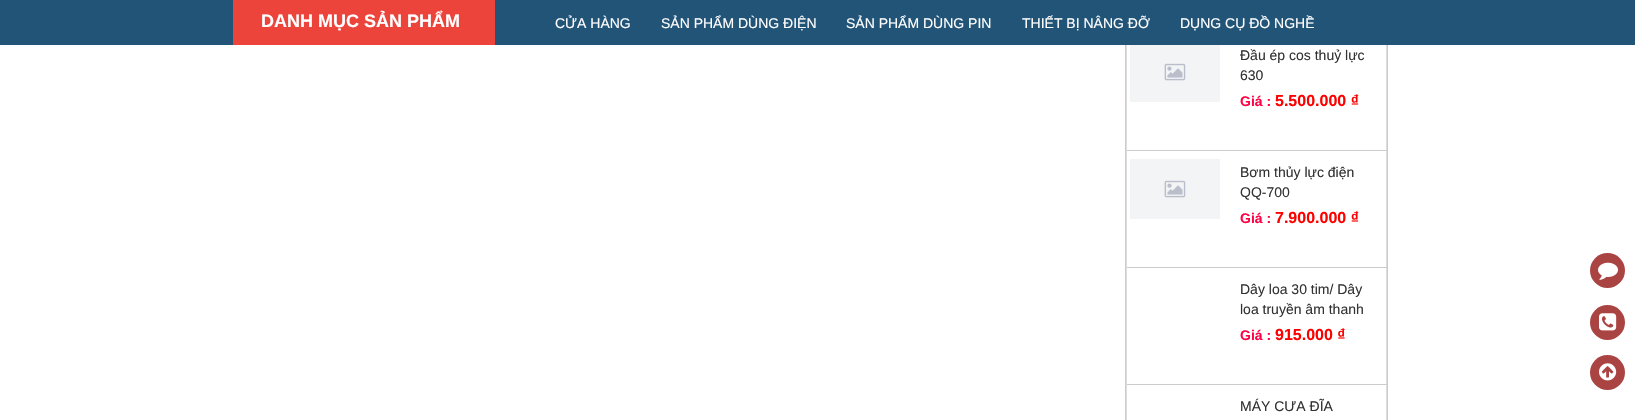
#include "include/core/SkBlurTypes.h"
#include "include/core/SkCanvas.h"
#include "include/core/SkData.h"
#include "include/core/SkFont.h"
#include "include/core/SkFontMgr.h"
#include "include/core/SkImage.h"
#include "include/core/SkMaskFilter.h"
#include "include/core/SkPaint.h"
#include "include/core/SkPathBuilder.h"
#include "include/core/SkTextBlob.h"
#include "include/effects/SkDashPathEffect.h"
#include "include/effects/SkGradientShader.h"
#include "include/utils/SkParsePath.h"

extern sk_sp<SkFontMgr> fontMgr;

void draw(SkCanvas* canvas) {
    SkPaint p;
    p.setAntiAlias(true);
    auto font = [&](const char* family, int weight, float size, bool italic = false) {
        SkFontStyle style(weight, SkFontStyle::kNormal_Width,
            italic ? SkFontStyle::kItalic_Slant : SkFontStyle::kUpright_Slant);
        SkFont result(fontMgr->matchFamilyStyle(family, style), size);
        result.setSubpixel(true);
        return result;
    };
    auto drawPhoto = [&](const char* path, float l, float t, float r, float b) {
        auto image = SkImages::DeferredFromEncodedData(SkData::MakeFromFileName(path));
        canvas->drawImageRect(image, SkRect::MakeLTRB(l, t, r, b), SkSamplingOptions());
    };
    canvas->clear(0xFFFFFFFF);
    p.setColor(0xFF225478);
    canvas->drawRect(SkRect::MakeLTRB(0, 0, 1635, 45), p);
    p.setColor(0xFFEC433B);
    canvas->drawRect(SkRect::MakeLTRB(233, 0, 495, 45), p);
    auto font1 = font("Liberation Sans", 700, 18);
    p.setColor(0xFFFFFFFF);
    canvas->drawString("DANH MỤC SẢN PHẨM", 261, 27, font1, p);
    auto font2 = font("Liberation Sans", 400, 14);
    {
        const struct { const char* s; float x, y; } items[] = {
            {"CỬA HÀNG", 555, 28},
            {"SẢN PHẨM DÙNG ĐIỆN", 661, 28},
            {"SẢN PHẨM DÙNG PIN", 846, 28},
            {"THIẾT BỊ NÂNG ĐỠ", 1022, 28},
            {"DỤNG CỤ ĐỒ NGHỀ", 1180, 28},
        };
        for (auto [s, x, y] : items) {
            canvas->drawString(s, x, y, font2, p);
        }
    }
    {
        const struct { float l, t, r, b; SkColor color; } items[] = {
            {1387, 45, 1388, 420, 0xFFCCCCCC},
            {1125, 45, 1126, 420, 0xFFCCCCCC},
            {1386, 45, 1387, 420, 0xFFDDDDDD},
            {1126, 150, 1387, 151, 0xFFCCCCCC},
            {1126, 45, 1127, 151, 0xFFDDDDDD},
        };
        for (auto [l, t, r, b, color] : items) {
            p.setColor(color);
            canvas->drawRect(SkRect::MakeLTRB(l, t, r, b), p);
        }
    }
    drawPhoto("media/1.png", 1130, 45, 1220, 102);
    p.setColor(0xFF333333);
    canvas->drawString("Đầu ép cos thuỷ lực", 1240, 60, font2, p);
    canvas->drawString("630", 1240, 80, font2, p);
    auto font3 = font("Liberation Sans", 700, 14);
    p.setColor(0xFFFF0245);
    canvas->drawString("Giá :", 1240, 106, font3, p);
    auto font4 = font("Liberation Sans", 700, 16);
    p.setColor(0xFFFF0000);
    canvas->drawString("5.500.000 ₫", 1275, 106, font4, p);
    p.setColor(0xFFCCCCCC);
    canvas->drawRect(SkRect::MakeLTRB(1126, 267, 1387, 268), p);
    p.setColor(0xFFDDDDDD);
    canvas->drawRect(SkRect::MakeLTRB(1126, 151, 1127, 268), p);
    drawPhoto("media/2.png", 1130, 159, 1220, 219);
    p.setColor(0xFF333333);
    canvas->drawString("Bơm thủy lực điện", 1240, 177, font2, p);
    canvas->drawString("QQ-700", 1240, 197, font2, p);
    p.setColor(0xFFFF0245);
    canvas->drawString("Giá :", 1240, 223, font3, p);
    p.setColor(0xFFFF0000);
    canvas->drawString("7.900.000 ₫", 1275, 223, font4, p);
    p.setColor(0xFFCCCCCC);
    canvas->drawRect(SkRect::MakeLTRB(1126, 384, 1387, 385), p);
    p.setColor(0xFFDDDDDD);
    canvas->drawRect(SkRect::MakeLTRB(1126, 268, 1127, 420), p);
    p.setColor(0xFF333333);
    canvas->drawString("Dây loa 30 tim/ Dây", 1240, 294, font2, p);
    canvas->drawString("loa truyền âm thanh", 1240, 314, font2, p);
    p.setColor(0xFFFF0245);
    canvas->drawString("Giá :", 1240, 340, font3, p);
    p.setColor(0xFFFF0000);
    canvas->drawString("915.000 ₫", 1275, 340, font4, p);
    p.setColor(0xFF333333);
    canvas->drawString("MÁY CƯA ĐĨA", 1240, 411, font2, p);
    p.setColor(0xFFA94442);
    canvas->drawCircle(1607.5f, 270.5f, 17.5f, p);
    drawPhoto("media/3.png", 1598, 262, 1618, 280);
    canvas->drawCircle(1607.5f, 322.5f, 17.5f, p);
    drawPhoto("media/4.png", 1599, 313, 1617, 331);
    canvas->drawCircle(1607.5f, 372.5f, 17.5f, p);
    drawPhoto("media/5.png", 1599, 363, 1617, 381);
}
